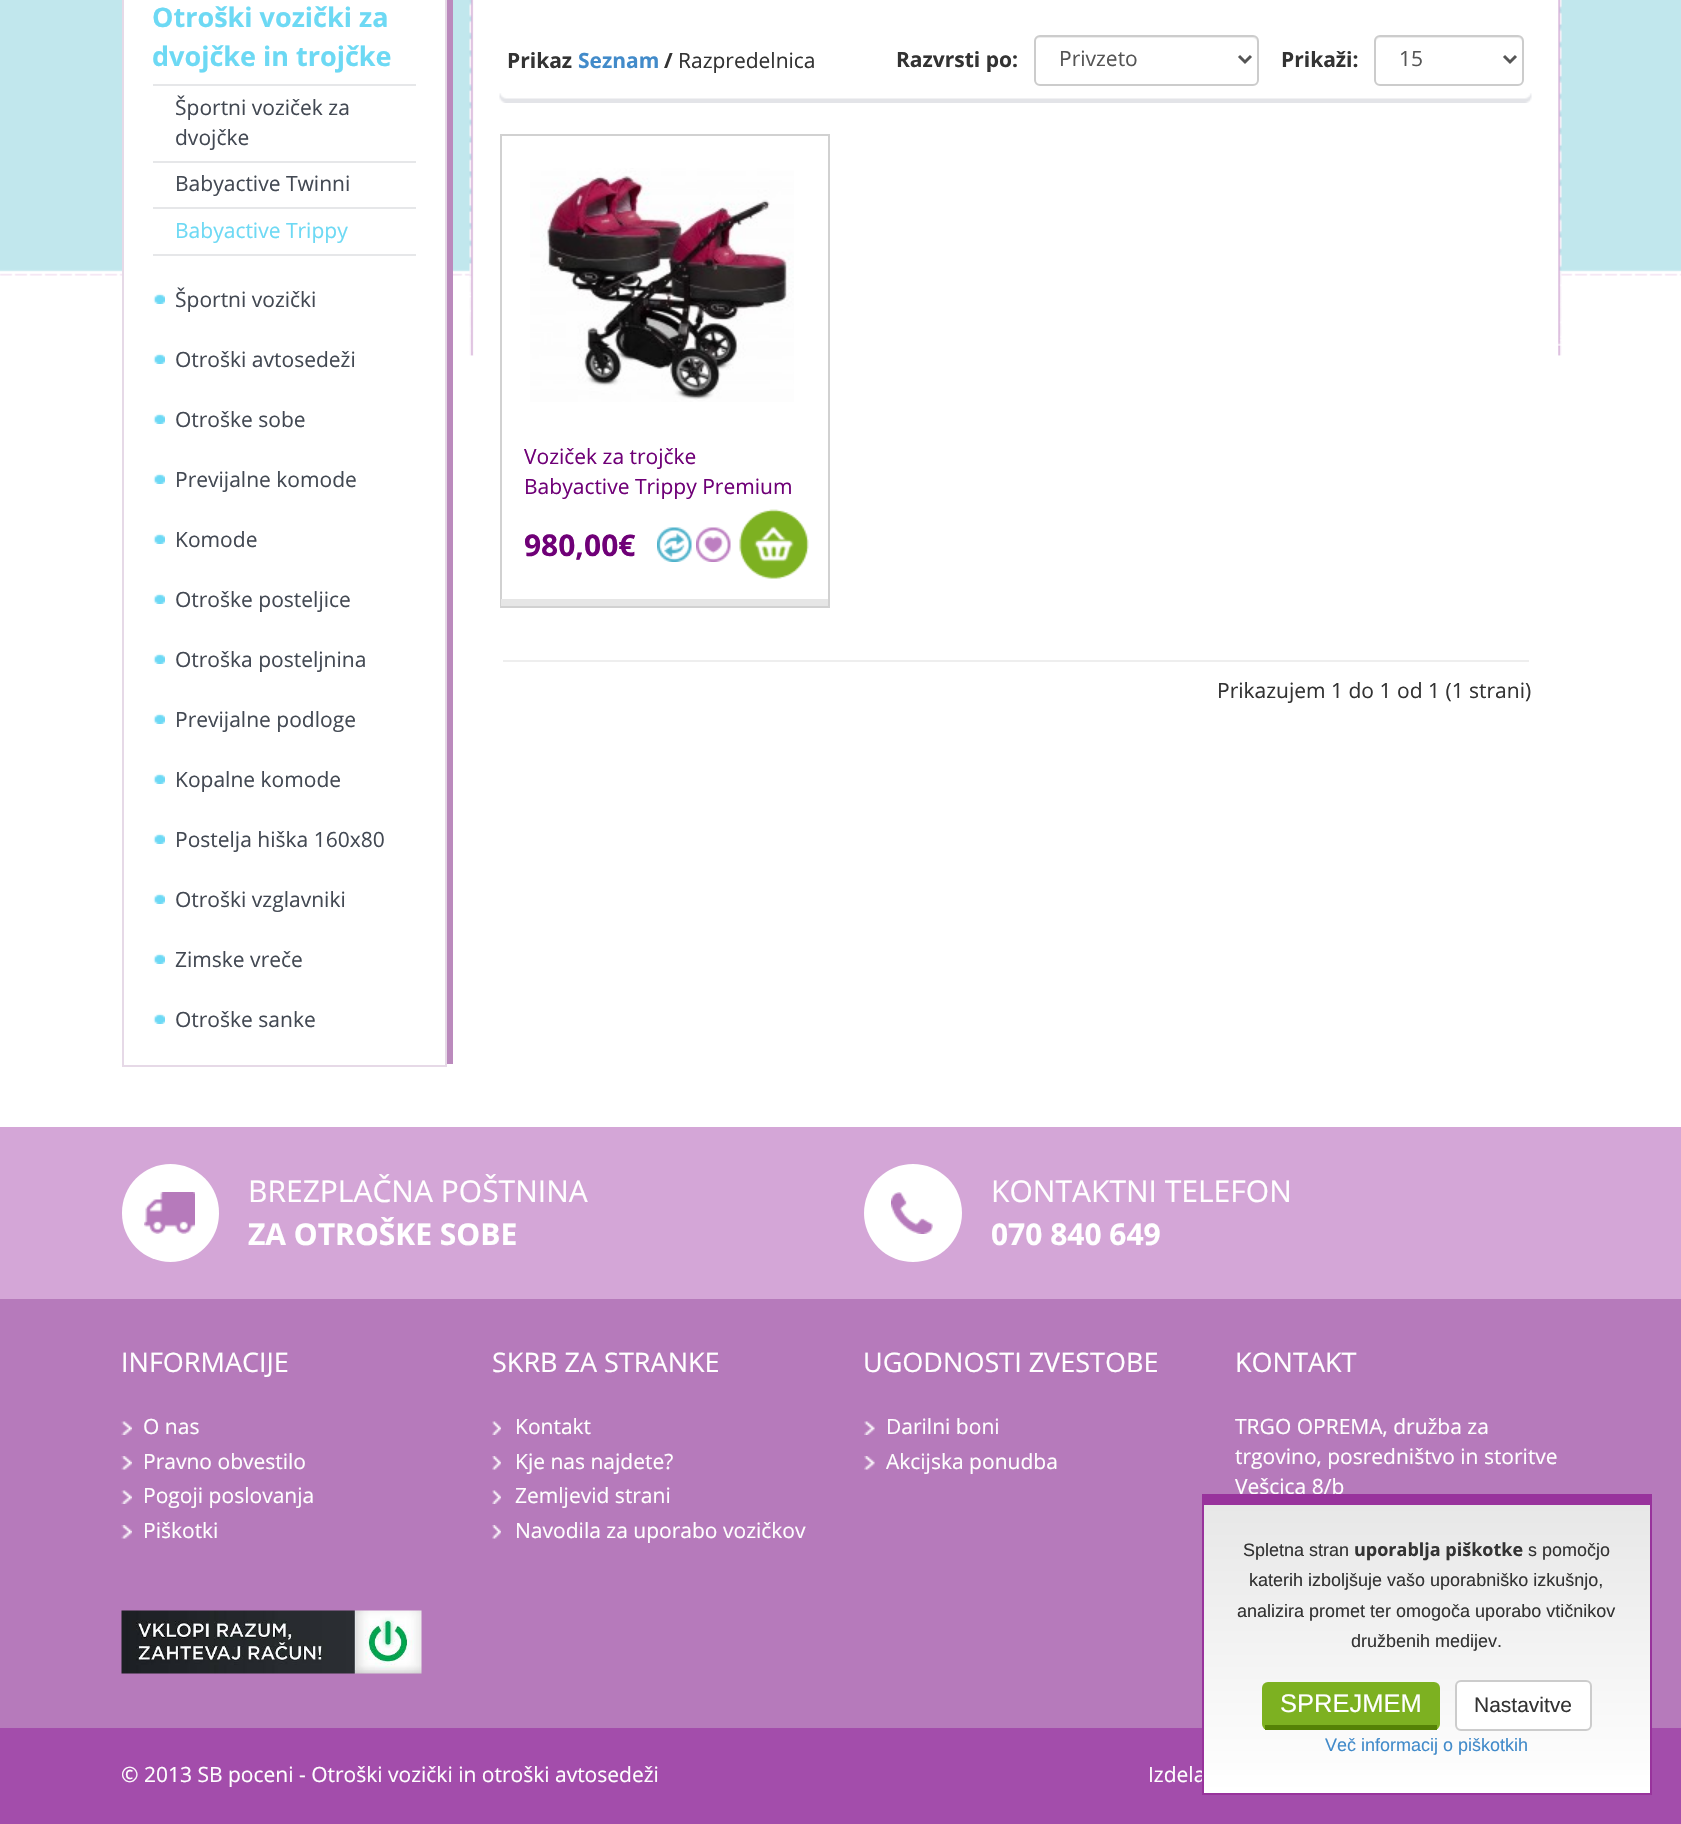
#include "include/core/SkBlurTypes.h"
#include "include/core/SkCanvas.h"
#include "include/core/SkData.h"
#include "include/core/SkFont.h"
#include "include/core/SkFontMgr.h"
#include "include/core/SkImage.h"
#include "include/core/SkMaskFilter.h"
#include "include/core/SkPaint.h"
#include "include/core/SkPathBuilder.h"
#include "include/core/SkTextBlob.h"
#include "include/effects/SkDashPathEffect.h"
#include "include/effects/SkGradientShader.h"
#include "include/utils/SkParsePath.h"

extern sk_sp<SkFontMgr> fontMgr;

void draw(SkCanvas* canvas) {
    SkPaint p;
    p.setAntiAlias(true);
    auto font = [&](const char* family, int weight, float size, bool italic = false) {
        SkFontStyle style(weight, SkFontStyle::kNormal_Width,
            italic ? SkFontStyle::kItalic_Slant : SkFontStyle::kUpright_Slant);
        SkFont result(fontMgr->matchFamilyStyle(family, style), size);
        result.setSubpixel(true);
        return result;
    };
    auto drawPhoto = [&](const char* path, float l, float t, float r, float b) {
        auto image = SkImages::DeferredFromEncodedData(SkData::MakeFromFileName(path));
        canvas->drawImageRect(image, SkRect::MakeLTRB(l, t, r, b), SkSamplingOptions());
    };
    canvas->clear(0xFFFFFFFF);
    drawPhoto("media/1.png", 0, 0, 1681, 276);
    p.setColor(0xFFBB8ABD);
    canvas->drawRect(SkRect::MakeLTRB(447, 0, 453, 1064), p);
    p.setColor(0xFFFFFFFF);
    canvas->drawRect(SkRect::MakeLTRB(124, 0, 445, 276), p);
    p.setStyle(SkPaint::kStroke_Style);
    p.setStrokeWidth(2);
    p.setColor(0xFFE6D9E7);
    canvas->drawRect(SkRect::MakeLTRB(123, -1, 446, 1066), p);
    p.setStyle(SkPaint::kFill_Style);
    p.setColor(0xFFE6E7E9);
    canvas->drawRect(SkRect::MakeLTRB(153, 254, 416, 256), p);
    auto font1 = font("Open Sans", 700, 27);
    p.setColor(0xFF6DD9F4);
    canvas->drawString("Otroški vozički za", 152, 27, font1, p);
    canvas->drawString("dvojčke in trojčke", 152, 66, font1, p);
    p.setColor(0xFFE6E7E9);
    canvas->drawRect(SkRect::MakeLTRB(153, 84, 416, 86), p);
    auto font2 = font("Open Sans", 400, 21);
    p.setColor(0xFF434953);
    canvas->drawString("Športni voziček za", 175, 115, font2, p);
    canvas->drawString("dvojčke", 175, 145, font2, p);
    p.setColor(0xFFE6E7E9);
    canvas->drawRect(SkRect::MakeLTRB(153, 161, 416, 163), p);
    p.setColor(0xFF434953);
    canvas->drawString("Babyactive Twinni", 175, 191, font2, p);
    p.setColor(0xFFE6E7E9);
    canvas->drawRect(SkRect::MakeLTRB(153, 207, 416, 209), p);
    p.setColor(0xFF6DD9F4);
    canvas->drawString("Babyactive Trippy", 175, 238, font2, p);
    drawPhoto("media/2.png", 153, 293, 165, 304);
    p.setColor(0xFF434953);
    canvas->drawString("Športni vozički", 175, 307, font2, p);
    drawPhoto("media/2.png", 153, 353, 165, 364);
    canvas->drawString("Otroški avtosedeži", 175, 367, font2, p);
    drawPhoto("media/2.png", 153, 413, 165, 424);
    canvas->drawString("Otroške sobe", 175, 427, font2, p);
    drawPhoto("media/2.png", 153, 473, 165, 484);
    canvas->drawString("Previjalne komode", 175, 487, font2, p);
    drawPhoto("media/2.png", 153, 533, 165, 544);
    canvas->drawString("Komode", 175, 547, font2, p);
    drawPhoto("media/2.png", 153, 593, 165, 604);
    canvas->drawString("Otroške posteljice", 175, 607, font2, p);
    drawPhoto("media/2.png", 153, 653, 165, 664);
    canvas->drawString("Otroška posteljnina", 175, 667, font2, p);
    drawPhoto("media/2.png", 153, 713, 165, 724);
    canvas->drawString("Previjalne podloge", 175, 727, font2, p);
    drawPhoto("media/2.png", 153, 773, 165, 784);
    canvas->drawString("Kopalne komode", 175, 787, font2, p);
    drawPhoto("media/2.png", 153, 833, 165, 844);
    canvas->drawString("Postelja hiška 160x80", 175, 847, font2, p);
    drawPhoto("media/2.png", 153, 893, 165, 904);
    canvas->drawString("Otroški vzglavniki", 175, 907, font2, p);
    drawPhoto("media/2.png", 153, 953, 165, 964);
    canvas->drawString("Zimske vreče", 175, 967, font2, p);
    drawPhoto("media/2.png", 153, 1013, 165, 1024);
    canvas->drawString("Otroške sanke", 175, 1027, font2, p);
    drawPhoto("media/3.png", 469, 0, 1562, 356);
    drawPhoto("media/4.png", 499, 93, 1532, 103);
    auto font3 = font("Open Sans", 700, 21);
    p.setColor(0xFF333333);
    canvas->drawString("Prikaz", 507, 68, font3, p);
    p.setColor(0xFF428BCA);
    canvas->drawString("Seznam", 578, 68, font3, p);
    p.setColor(0xFF333333);
    canvas->drawString("/", 664, 68, font3, p);
    canvas->drawString("Razpredelnica", 678, 68, font2, p);
    canvas->drawString("Razvrsti po:", 896, 67, font3, p);
    p.setColor(0xFFECECEC);
    canvas->drawPath(SkPathBuilder().moveTo(1040, 38).lineTo(1252, 38).cubicTo(1255, 38, 1257, 40, 1257, 42).lineTo(1257, 41).cubicTo(1257, 38, 1255, 36, 1252, 36).lineTo(1040, 36).cubicTo(1037, 36, 1035, 38, 1035, 41).lineTo(1035, 42).cubicTo(1035, 40, 1037, 38, 1040, 38).close().detach(), p);
    p.setStyle(SkPaint::kStroke_Style);
    p.setColor(0xFFCCCCCC);
    canvas->drawRoundRect(SkRect::MakeLTRB(1035, 36, 1258, 85), 5, 5, p);
    p.setStrokeWidth(3);
    p.setColor(0xFF555555);
    canvas->drawPath(SkPathBuilder().moveTo(1239, 56).lineTo(1245, 62).lineTo(1251, 56).detach(), p);
    p.setStyle(SkPaint::kFill_Style);
    canvas->drawString("Privzeto", 1059, 66, font2, p);
    p.setColor(0xFF333333);
    canvas->drawString("Prikaži:", 1281, 67, font3, p);
    p.setColor(0xFFECECEC);
    canvas->drawPath(SkPathBuilder().moveTo(1380, 38).lineTo(1518, 38).cubicTo(1520, 38, 1522, 40, 1522, 42).lineTo(1522, 82).cubicTo(1523, 81, 1523, 80, 1523, 79).lineTo(1523, 41).cubicTo(1523, 38, 1521, 36, 1518, 36).lineTo(1381, 36).cubicTo(1378, 36, 1376, 38, 1376, 41).lineTo(1376, 42).cubicTo(1376, 40, 1378, 38, 1380, 38).close().detach(), p);
    p.setStyle(SkPaint::kStroke_Style);
    p.setStrokeWidth(2);
    p.setColor(0xFFCCCCCC);
    canvas->drawRoundRect(SkRect::MakeLTRB(1375, 36, 1523, 85), 5, 5, p);
    p.setStrokeWidth(3);
    p.setColor(0xFF555555);
    canvas->drawPath(SkPathBuilder().moveTo(1504, 56).lineTo(1510, 62).lineTo(1516, 56).detach(), p);
    p.setStyle(SkPaint::kFill_Style);
    canvas->drawString("15", 1399, 66, font2, p);
    p.setStyle(SkPaint::kStroke_Style);
    p.setStrokeWidth(2);
    p.setColor(0xFFD1D1D1);
    canvas->drawRect(SkRect::MakeLTRB(501, 135, 829, 607), p);
    drawPhoto("media/5.png", 530, 168, 794, 402);
    p.setStyle(SkPaint::kFill_Style);
    p.setColor(0xFF6F0077);
    canvas->drawString("Voziček za trojčke", 524, 464, font2, p);
    canvas->drawString("Babyactive Trippy Premium", 524, 494, font2, p);
    auto font4 = font("Open Sans", 700, 30);
    canvas->drawString("980,00€", 524, 556, font4, p);
    drawPhoto("media/6.png", 657, 527, 692, 562);
    drawPhoto("media/7.png", 696, 527, 731, 562);
    drawPhoto("media/8.png", 739, 509, 809, 579);
    p.setColor(0xFFE6E6E6);
    canvas->drawRect(SkRect::MakeLTRB(501, 599, 828, 606), p);
    p.setColor(0xFFEEEEEE);
    canvas->drawRect(SkRect::MakeLTRB(503, 660, 1529, 662), p);
    p.setColor(0xFF333333);
    canvas->drawString("Prikazujem 1 do 1 od 1 (1 strani)", 1217, 698, font2, p);
    p.setColor(0xFFD4A6D7);
    canvas->drawRect(SkRect::MakeLTRB(0, 1127, 1681, 1299), p);
    p.setColor(0xFFFFFFFF);
    canvas->drawRoundRect(SkRect::MakeLTRB(122, 1164, 219, 1262), 48.5f, 48.5f, p);
    drawPhoto("media/9.png", 144, 1192, 195, 1234);
    auto font5 = font("Open Sans", 400, 30);
    canvas->drawString("BREZPLAČNA POŠTNINA", 248, 1202, font5, p);
    canvas->drawString("ZA OTROŠKE SOBE", 248, 1245, font4, p);
    canvas->drawCircle(913, 1213, 49, p);
    drawPhoto("media/10.png", 891, 1192, 933, 1234);
    canvas->drawString("KONTAKTNI TELEFON", 991, 1202, font5, p);
    canvas->drawString("070 840 649", 991, 1245, font4, p);
    p.setColor(0xFFB67ABB);
    canvas->drawRect(SkRect::MakeLTRB(0, 1299, 1681, 1728), p);
    auto font6 = font("Open Sans", 400, 27);
    p.setColor(0xFFFFFFFF);
    canvas->drawString("INFORMACIJE", 121, 1372, font6, p);
    drawPhoto("media/11.png", 121, 1421, 132, 1435);
    canvas->drawString("O nas", 143, 1434, font2, p);
    drawPhoto("media/12.png", 121, 1456, 132, 1470);
    canvas->drawString("Pravno obvestilo", 143, 1469, font2, p);
    drawPhoto("media/11.png", 121, 1490, 132, 1504);
    canvas->drawString("Pogoji poslovanja", 143, 1503, font2, p);
    drawPhoto("media/12.png", 121, 1525, 132, 1539);
    canvas->drawString("Piškotki", 143, 1538, font2, p);
    drawPhoto("media/13.png", 121, 1610, 422, 1674);
    canvas->drawString("SKRB ZA STRANKE", 492, 1372, font6, p);
    drawPhoto("media/14.png", 492, 1421, 501, 1435);
    canvas->drawString("Kontakt", 515, 1434, font2, p);
    drawPhoto("media/15.png", 492, 1456, 501, 1470);
    canvas->drawString("Kje nas najdete?", 515, 1469, font2, p);
    drawPhoto("media/14.png", 492, 1490, 501, 1504);
    canvas->drawString("Zemljevid strani", 515, 1503, font2, p);
    drawPhoto("media/15.png", 492, 1525, 501, 1539);
    canvas->drawString("Navodila za uporabo vozičkov", 515, 1538, font2, p);
    canvas->drawString("UGODNOSTI ZVESTOBE", 863, 1372, font6, p);
    drawPhoto("media/16.png", 864, 1421, 875, 1435);
    canvas->drawString("Darilni boni", 886, 1434, font2, p);
    drawPhoto("media/17.png", 864, 1456, 875, 1470);
    canvas->drawString("Akcijska ponudba", 886, 1469, font2, p);
    canvas->drawString("KONTAKT", 1235, 1372, font6, p);
    {
        const struct { const char* s; float x, y; } items[] = {
            {"TRGO OPREMA, družba za", 1235, 1434},
            {"trgovino, posredništvo in storitve", 1235, 1464},
            {"Vešcica 8/b", 1235, 1494},
        };
        for (auto [s, x, y] : items) {
            canvas->drawString(s, x, y, font2, p);
        }
    }
    p.setColor(0xFFA34DAB);
    canvas->drawRect(SkRect::MakeLTRB(0, 1728, 1681, 1824), p);
    p.setColor(0xFFFFFFFF);
    canvas->drawString("© 2013 SB poceni - Otroški vozički in otroški avtosedeži", 121, 1782, font2, p);
    canvas->drawString("Izdela", 1148, 1782, font2, p);
    {
        const SkColor colors[] = {0xFFE7E7E7, 0xFFFFFFFF};
        const float stops[] = {0, 1};
        const SkPoint ends[] = {{1427, 1505}, {1427, 1793}};
        p.setShader(SkGradientShader::MakeLinear(ends, colors, stops, 2, SkTileMode::kClamp));
        p.setAlpha(255);
    }
    canvas->drawRect(SkRect::MakeLTRB(1204, 1505, 1650, 1793), p);
    p.setShader(nullptr);
    {
        const struct { float l, t, r, b; SkColor color; } items[] = {
            {1204, 1494, 1650, 1505, 0xFF98339C},
            {1650, 1494, 1652, 1794, 0xFF98339C},
            {1202, 1793, 1652, 1795, 0xFF98339C},
            {1202, 1494, 1204, 1794, 0xFF98339C},
        };
        for (auto [l, t, r, b, color] : items) {
            p.setColor(color);
            canvas->drawRect(SkRect::MakeLTRB(l, t, r, b), p);
        }
    }
    auto font7 = font("Liberation Sans", 400, 18);
    p.setColor(0xFF333333);
    canvas->drawString("Spletna stran", 1243, 1556, font7, p);
    auto font8 = font("Open Sans", 700, 18);
    canvas->drawString("uporablja piškotke", 1354, 1556, font8, p);
    {
        const struct { const char* s; float x, y; } items[] = {
            {"s pomočjo", 1528, 1556},
            {"katerih izboljšuje vašo uporabniško izkušnjo,", 1249, 1586},
            {"analizira promet ter omogoča uporabo vtičnikov", 1237, 1617},
            {"družbenih medijev.", 1351, 1647},
        };
        for (auto [s, x, y] : items) {
            canvas->drawString(s, x, y, font7, p);
        }
    }
    p.setColor(0xFF7DB121);
    canvas->drawRoundRect(SkRect::MakeLTRB(1262, 1682, 1440, 1730), 6, 6, p);
    p.setColor(0xFF558206);
    canvas->drawRect(SkRect::MakeLTRB(1265, 1725, 1437, 1730), p);
    auto font9 = font("Liberation Sans", 400, 25.5f);
    p.setColor(0xFFFFFFFF);
    canvas->drawString("SPREJMEM", 1280, 1712, font9, p);
    canvas->drawRoundRect(SkRect::MakeLTRB(1456, 1681, 1591, 1730), 5, 5, p);
    p.setStyle(SkPaint::kStroke_Style);
    p.setColor(0xFFCCCCCC);
    canvas->drawRoundRect(SkRect::MakeLTRB(1456, 1681, 1591, 1730), 5, 5, p);
    auto font10 = font("Liberation Sans", 400, 21);
    p.setStyle(SkPaint::kFill_Style);
    p.setColor(0xFF333333);
    canvas->drawString("Nastavitve", 1474, 1712, font10, p);
    p.setColor(0xFF428BCA);
    canvas->drawString("Več informacij o piškotkih", 1325, 1751, font7, p);
}
